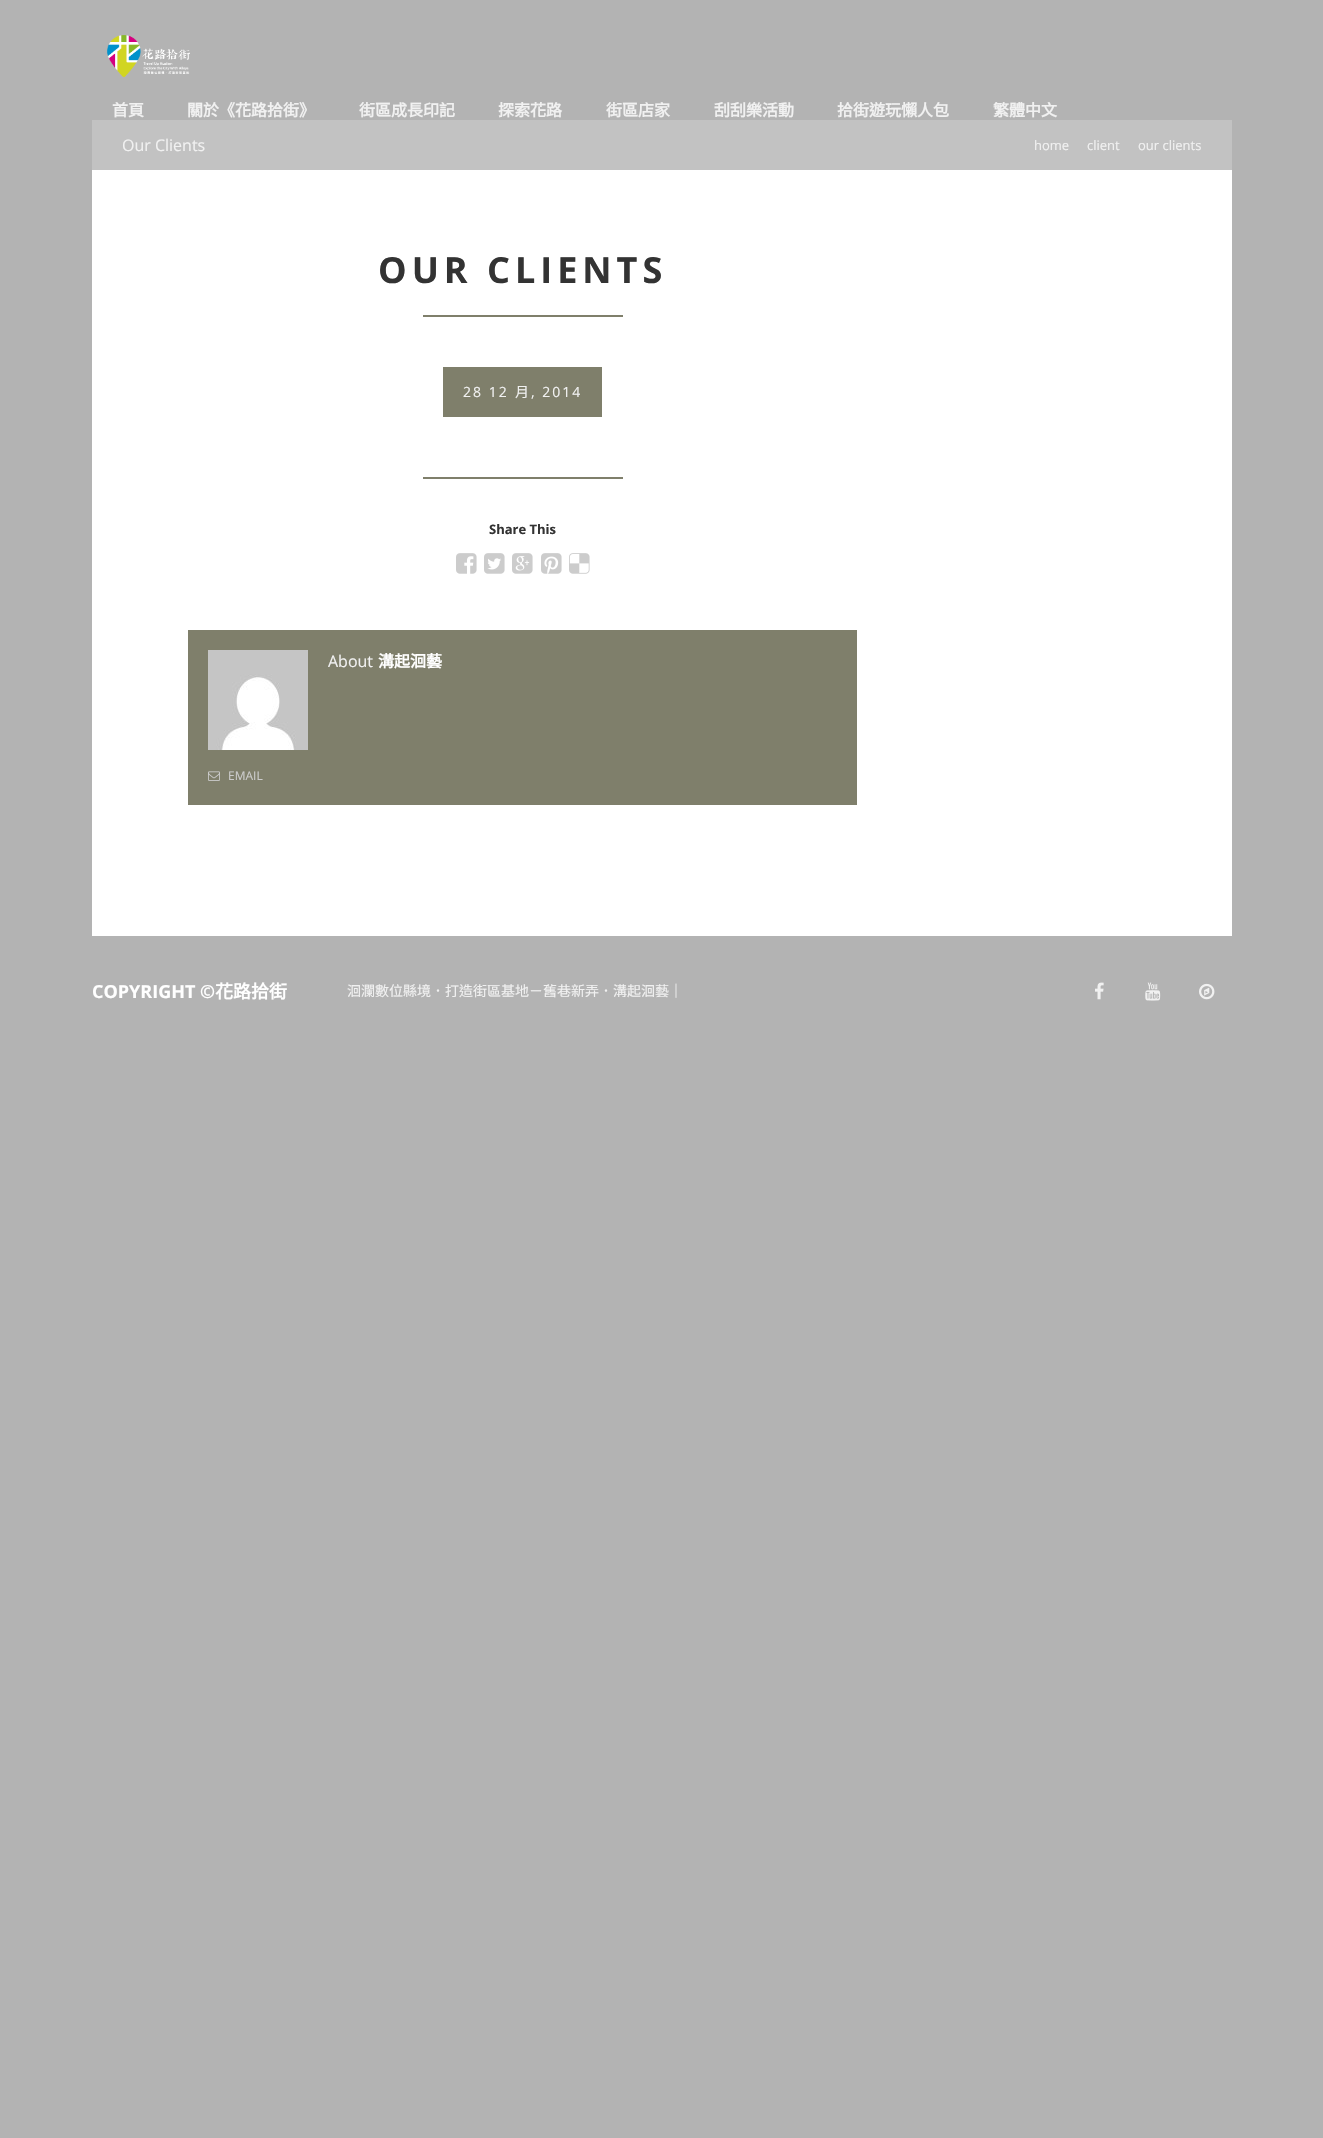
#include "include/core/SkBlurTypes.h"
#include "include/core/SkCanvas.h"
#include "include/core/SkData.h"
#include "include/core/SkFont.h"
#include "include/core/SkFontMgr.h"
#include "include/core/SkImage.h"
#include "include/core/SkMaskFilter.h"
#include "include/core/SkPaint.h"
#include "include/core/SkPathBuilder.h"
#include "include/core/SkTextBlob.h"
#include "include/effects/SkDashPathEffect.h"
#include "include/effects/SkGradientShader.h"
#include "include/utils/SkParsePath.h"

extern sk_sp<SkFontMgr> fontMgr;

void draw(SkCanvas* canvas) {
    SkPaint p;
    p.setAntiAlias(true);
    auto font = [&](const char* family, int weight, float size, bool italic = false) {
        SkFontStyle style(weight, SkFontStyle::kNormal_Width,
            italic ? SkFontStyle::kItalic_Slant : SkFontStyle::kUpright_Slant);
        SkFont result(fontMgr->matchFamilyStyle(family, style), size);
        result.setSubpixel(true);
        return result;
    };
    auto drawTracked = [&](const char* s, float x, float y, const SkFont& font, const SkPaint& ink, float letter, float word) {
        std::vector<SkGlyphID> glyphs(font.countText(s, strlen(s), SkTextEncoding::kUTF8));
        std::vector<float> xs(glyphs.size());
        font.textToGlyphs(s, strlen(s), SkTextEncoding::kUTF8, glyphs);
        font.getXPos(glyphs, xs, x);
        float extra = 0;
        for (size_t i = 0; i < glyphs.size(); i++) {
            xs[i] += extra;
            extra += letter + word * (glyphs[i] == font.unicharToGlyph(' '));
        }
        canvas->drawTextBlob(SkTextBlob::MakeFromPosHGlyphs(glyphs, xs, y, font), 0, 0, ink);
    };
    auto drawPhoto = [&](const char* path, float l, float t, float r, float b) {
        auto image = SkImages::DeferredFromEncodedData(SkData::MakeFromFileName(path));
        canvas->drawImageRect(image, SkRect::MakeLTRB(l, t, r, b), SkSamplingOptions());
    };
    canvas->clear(0xFFB3B3B3);
    drawPhoto("media/1.png", 107, 35, 190, 78);
    auto font1 = font("Noto Sans CJK TC", 700, 16);
    p.setColor(0xFFF1F1F1);
    {
        const struct { const char* s; float x, y; } items[] = {
            {"首頁", 112, 116},
            {"關於《花路拾街》", 187, 116},
            {"街區成長印記", 359, 116},
            {"探索花路", 498, 116},
            {"街區店家", 606, 116},
            {"刮刮樂活動", 714, 116},
            {"拾街遊玩懶人包", 837, 116},
            {"繁體中文", 993, 116},
        };
        for (auto [s, x, y] : items) {
            canvas->drawString(s, x, y, font1, p);
        }
    }
    p.setColor(0xFFC2C2C2);
    canvas->drawRect(SkRect::MakeLTRB(92, 120, 1232, 170), p);
    auto font2 = font("Open Sans", 400, 16);
    p.setColor(0xFFF1F1F1);
    canvas->drawString("Our Clients", 122, 151, font2, p);
    auto font3 = font("Open Sans", 400, 13);
    {
        const struct { const char* s; float x, y; } items[] = {
            {"home", 1034, 150},
            {"client", 1087, 150},
            {"our clients", 1138, 150},
        };
        for (auto [s, x, y] : items) {
            canvas->drawString(s, x, y, font3, p);
        }
    }
    p.setColor(0xFFFFFFFF);
    canvas->drawRect(SkRect::MakeLTRB(92, 170, 1232, 936), p);
    auto font4 = font("Open Sans", 700, 36);
    p.setColor(0xFF333333);
    drawTracked("OUR CLIENTS", 378, 283, font4, p, 5, 0);
    p.setColor(0xFF7F7F6B);
    canvas->drawRect(SkRect::MakeLTRB(423, 315, 623, 317), p);
    canvas->drawRect(SkRect::MakeLTRB(443, 367, 602, 417), p);
    auto font5 = font("Open Sans", 400, 14);
    p.setColor(0xFFF1F1F1);
    drawTracked("28 12", 463, 397, font5, p, 2, 0);
    auto font6 = font("Noto Sans CJK TC", 400, 14);
    drawTracked("月", 515, 397, font6, p, 2, 0);
    drawTracked(", 2014", 531, 397, font5, p, 2, 0);
    p.setColor(0xFF7F7F6B);
    canvas->drawRect(SkRect::MakeLTRB(423, 477, 623, 479), p);
    auto font7 = font("Open Sans", 700, 13);
    p.setColor(0xFF333333);
    canvas->drawString("Share This", 489, 534, font7, p);
    drawPhoto("media/2.png", 456, 553, 477, 574);
    drawPhoto("media/3.png", 484, 553, 505, 574);
    drawPhoto("media/4.png", 512, 553, 533, 574);
    drawPhoto("media/5.png", 541, 553, 562, 574);
    drawPhoto("media/6.png", 569, 553, 590, 574);
    p.setColor(0xFF7F7F6B);
    canvas->drawRect(SkRect::MakeLTRB(188, 630, 857, 805), p);
    drawPhoto("media/7.png", 208, 650, 308, 750);
    p.setColor(0xFFF1F1F1);
    canvas->drawString("About", 328, 667, font2, p);
    p.setColor(0xFFFFFFFF);
    canvas->drawString("溝起洄藝", 378, 667, font1, p);
    drawPhoto("media/8.png", 208, 771, 220, 781);
    auto font8 = font("Open Sans", 400, 12);
    p.setColor(0xFFCCCCCC);
    canvas->drawString("EMAIL", 228, 780, font8, p);
    auto font9 = font("Open Sans", 700, 18);
    p.setColor(0xFFFFFFFF);
    canvas->drawString("COPYRIGHT ©", 92, 998, font9, p);
    auto font10 = font("Noto Sans CJK TC", 700, 18);
    canvas->drawString("花路拾街", 215, 998, font10, p);
    p.setColor(0xFFF1F1F1);
    canvas->drawString("洄瀾數位縣境．打造街區基地－舊巷新弄．溝起洄藝｜", 347, 996, font6, p);
    drawPhoto("media/9.png", 1095, 982, 1104, 1000);
    drawPhoto("media/10.png", 1145, 982, 1161, 1001);
    drawPhoto("media/11.png", 1199, 983, 1215, 1000);
}
